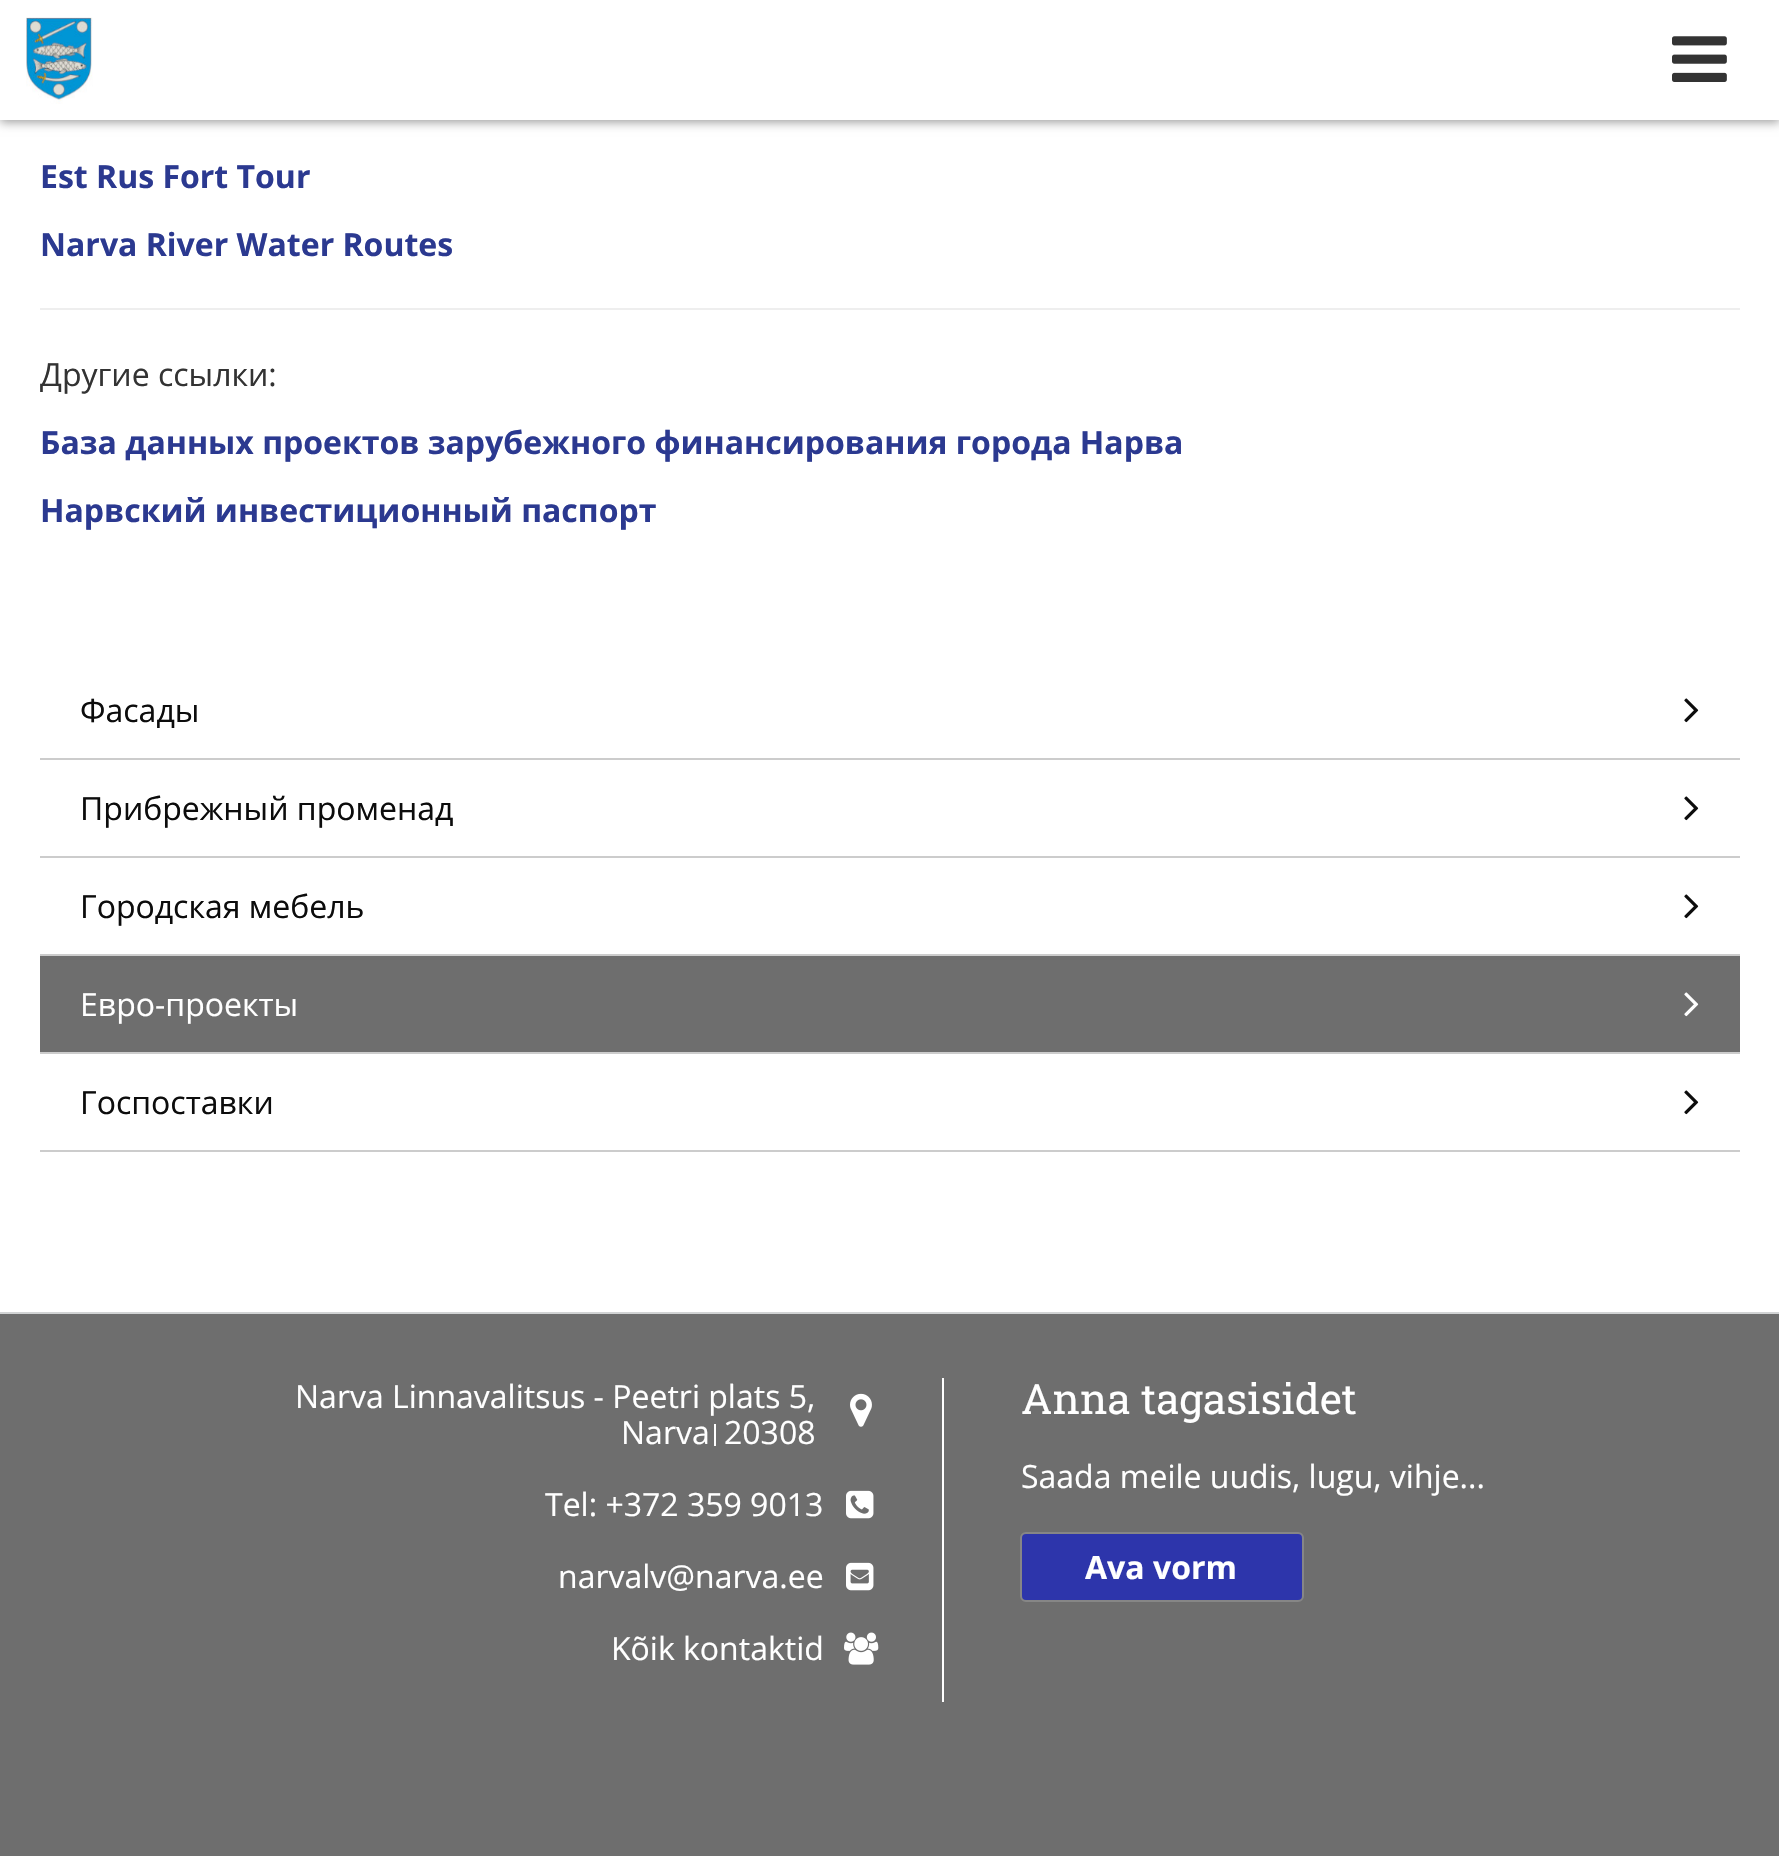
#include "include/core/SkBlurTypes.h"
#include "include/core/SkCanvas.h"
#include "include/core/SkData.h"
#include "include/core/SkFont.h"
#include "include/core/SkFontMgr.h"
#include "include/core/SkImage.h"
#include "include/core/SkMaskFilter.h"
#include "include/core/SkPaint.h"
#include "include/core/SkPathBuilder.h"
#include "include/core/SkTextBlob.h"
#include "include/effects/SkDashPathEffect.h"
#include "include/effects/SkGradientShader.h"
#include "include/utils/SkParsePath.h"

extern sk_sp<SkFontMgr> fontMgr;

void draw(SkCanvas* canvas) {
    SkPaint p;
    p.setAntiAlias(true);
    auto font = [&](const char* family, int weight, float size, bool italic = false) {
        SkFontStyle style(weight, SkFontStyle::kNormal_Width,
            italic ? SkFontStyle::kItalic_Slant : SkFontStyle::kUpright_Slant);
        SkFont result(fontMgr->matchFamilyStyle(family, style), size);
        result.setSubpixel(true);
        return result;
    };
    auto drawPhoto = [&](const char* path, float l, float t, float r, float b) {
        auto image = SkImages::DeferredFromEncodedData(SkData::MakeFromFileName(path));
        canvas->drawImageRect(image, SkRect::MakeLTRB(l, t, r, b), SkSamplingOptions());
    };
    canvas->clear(0xFFFFFFFF);
    p.setColor(0x66000000);
    p.setMaskFilter(SkMaskFilter::MakeBlur(kNormal_SkBlurStyle, 5));
    canvas->drawRect(SkRect::MakeLTRB(0, 2, 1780, 122), p);
    p.setMaskFilter(nullptr);
    p.setColor(0xFFFFFFFF);
    canvas->drawRect(SkRect::MakeLTRB(0, 0, 1779, 120), p);
    drawPhoto("media/1.png", 26, 17, 93, 104);
    drawPhoto("media/2.png", 1672, 36, 1727, 82);
    auto font1 = font("Open Sans", 700, 32);
    p.setColor(0xFF2B3990);
    canvas->drawString("Est Rus Fort Tour", 40, 188, font1, p);
    canvas->drawString("Narva River Water Routes", 40, 256, font1, p);
    p.setColor(0xFFEEEEEE);
    canvas->drawRect(SkRect::MakeLTRB(40, 308, 1740, 310), p);
    auto font2 = font("Open Sans", 400, 32);
    p.setColor(0xFF333333);
    canvas->drawString("Другие ссылки:", 40, 386, font2, p);
    p.setColor(0xFF2B3990);
    canvas->drawString("База данных проектов зарубежного финансирования города Нарва", 40, 454, font1, p);
    canvas->drawString("Нарвский инвестиционный паспорт", 40, 522, font1, p);
    p.setColor(0xFFCCCCCC);
    canvas->drawRect(SkRect::MakeLTRB(40, 758, 1740, 760), p);
    p.setColor(0xFF0C0C0C);
    canvas->drawString("Фасады", 80, 722, font2, p);
    drawPhoto("media/3.png", 1684, 698, 1699, 723);
    p.setColor(0xFFCCCCCC);
    canvas->drawRect(SkRect::MakeLTRB(40, 856, 1740, 858), p);
    p.setColor(0xFF0C0C0C);
    canvas->drawString("Прибрежный променад", 80, 820, font2, p);
    drawPhoto("media/3.png", 1684, 796, 1699, 821);
    p.setColor(0xFFCCCCCC);
    canvas->drawRect(SkRect::MakeLTRB(40, 954, 1740, 956), p);
    p.setColor(0xFF0C0C0C);
    canvas->drawString("Городская мебель", 80, 918, font2, p);
    drawPhoto("media/3.png", 1684, 894, 1699, 919);
    p.setColor(0xFF6E6E6E);
    canvas->drawRect(SkRect::MakeLTRB(40, 956, 1740, 1052), p);
    p.setColor(0xFFCCCCCC);
    canvas->drawRect(SkRect::MakeLTRB(40, 1052, 1740, 1054), p);
    p.setColor(0xFFFFFFFF);
    canvas->drawString("Евро-проекты", 80, 1016, font2, p);
    drawPhoto("media/4.png", 1684, 992, 1699, 1017);
    p.setColor(0xFFCCCCCC);
    canvas->drawRect(SkRect::MakeLTRB(40, 1150, 1740, 1152), p);
    p.setColor(0xFF0C0C0C);
    canvas->drawString("Госпоставки", 80, 1114, font2, p);
    drawPhoto("media/3.png", 1684, 1090, 1699, 1115);
    {
        const struct { float l, t, r, b; SkColor color; } items[] = {
            {0, 1314, 1779, 1856, 0xFF6E6E6E},
            {0, 1312, 1779, 1314, 0xFFD1D3D4},
            {942, 1378, 944, 1702, 0xFFFFFFFF},
        };
        for (auto [l, t, r, b, color] : items) {
            p.setColor(color);
            canvas->drawRect(SkRect::MakeLTRB(l, t, r, b), p);
        }
    }
    canvas->drawString("Narva Linnavalitsus - Peetri plats 5,", 295, 1408, font2, p);
    canvas->drawString("Narva", 621, 1444, font2, p);
    canvas->drawRect(SkRect::MakeLTRB(714, 1424, 716, 1446), p);
    canvas->drawString("20308", 724, 1444, font2, p);
    drawPhoto("media/5.png", 850, 1393, 872, 1427);
    canvas->drawString("Tel: +372 359 9013", 545, 1516, font2, p);
    drawPhoto("media/6.png", 846, 1490, 874, 1519);
    canvas->drawString("narvalv@narva.ee", 558, 1588, font2, p);
    drawPhoto("media/7.png", 846, 1562, 874, 1591);
    canvas->drawString("Kõik kontaktid", 611, 1660, font2, p);
    drawPhoto("media/8.png", 844, 1632, 879, 1665);
    auto font3 = font("Roboto Slab", 400, 42);
    canvas->drawString("Anna tagasisidet", 1021, 1414, font3, p);
    canvas->drawString("Saada meile uudis, lugu, vihje...", 1021, 1488, font2, p);
    p.setColor(0xFF2D35AB);
    canvas->drawRoundRect(SkRect::MakeLTRB(1021, 1533, 1303, 1601), 5, 5, p);
    p.setStyle(SkPaint::kStroke_Style);
    p.setStrokeWidth(2);
    p.setColor(0xFF868686);
    canvas->drawRoundRect(SkRect::MakeLTRB(1021, 1533, 1303, 1601), 5, 5, p);
    p.setStyle(SkPaint::kFill_Style);
    p.setColor(0xFFFFFFFF);
    canvas->drawString("Ava vorm", 1085, 1579, font1, p);
}
